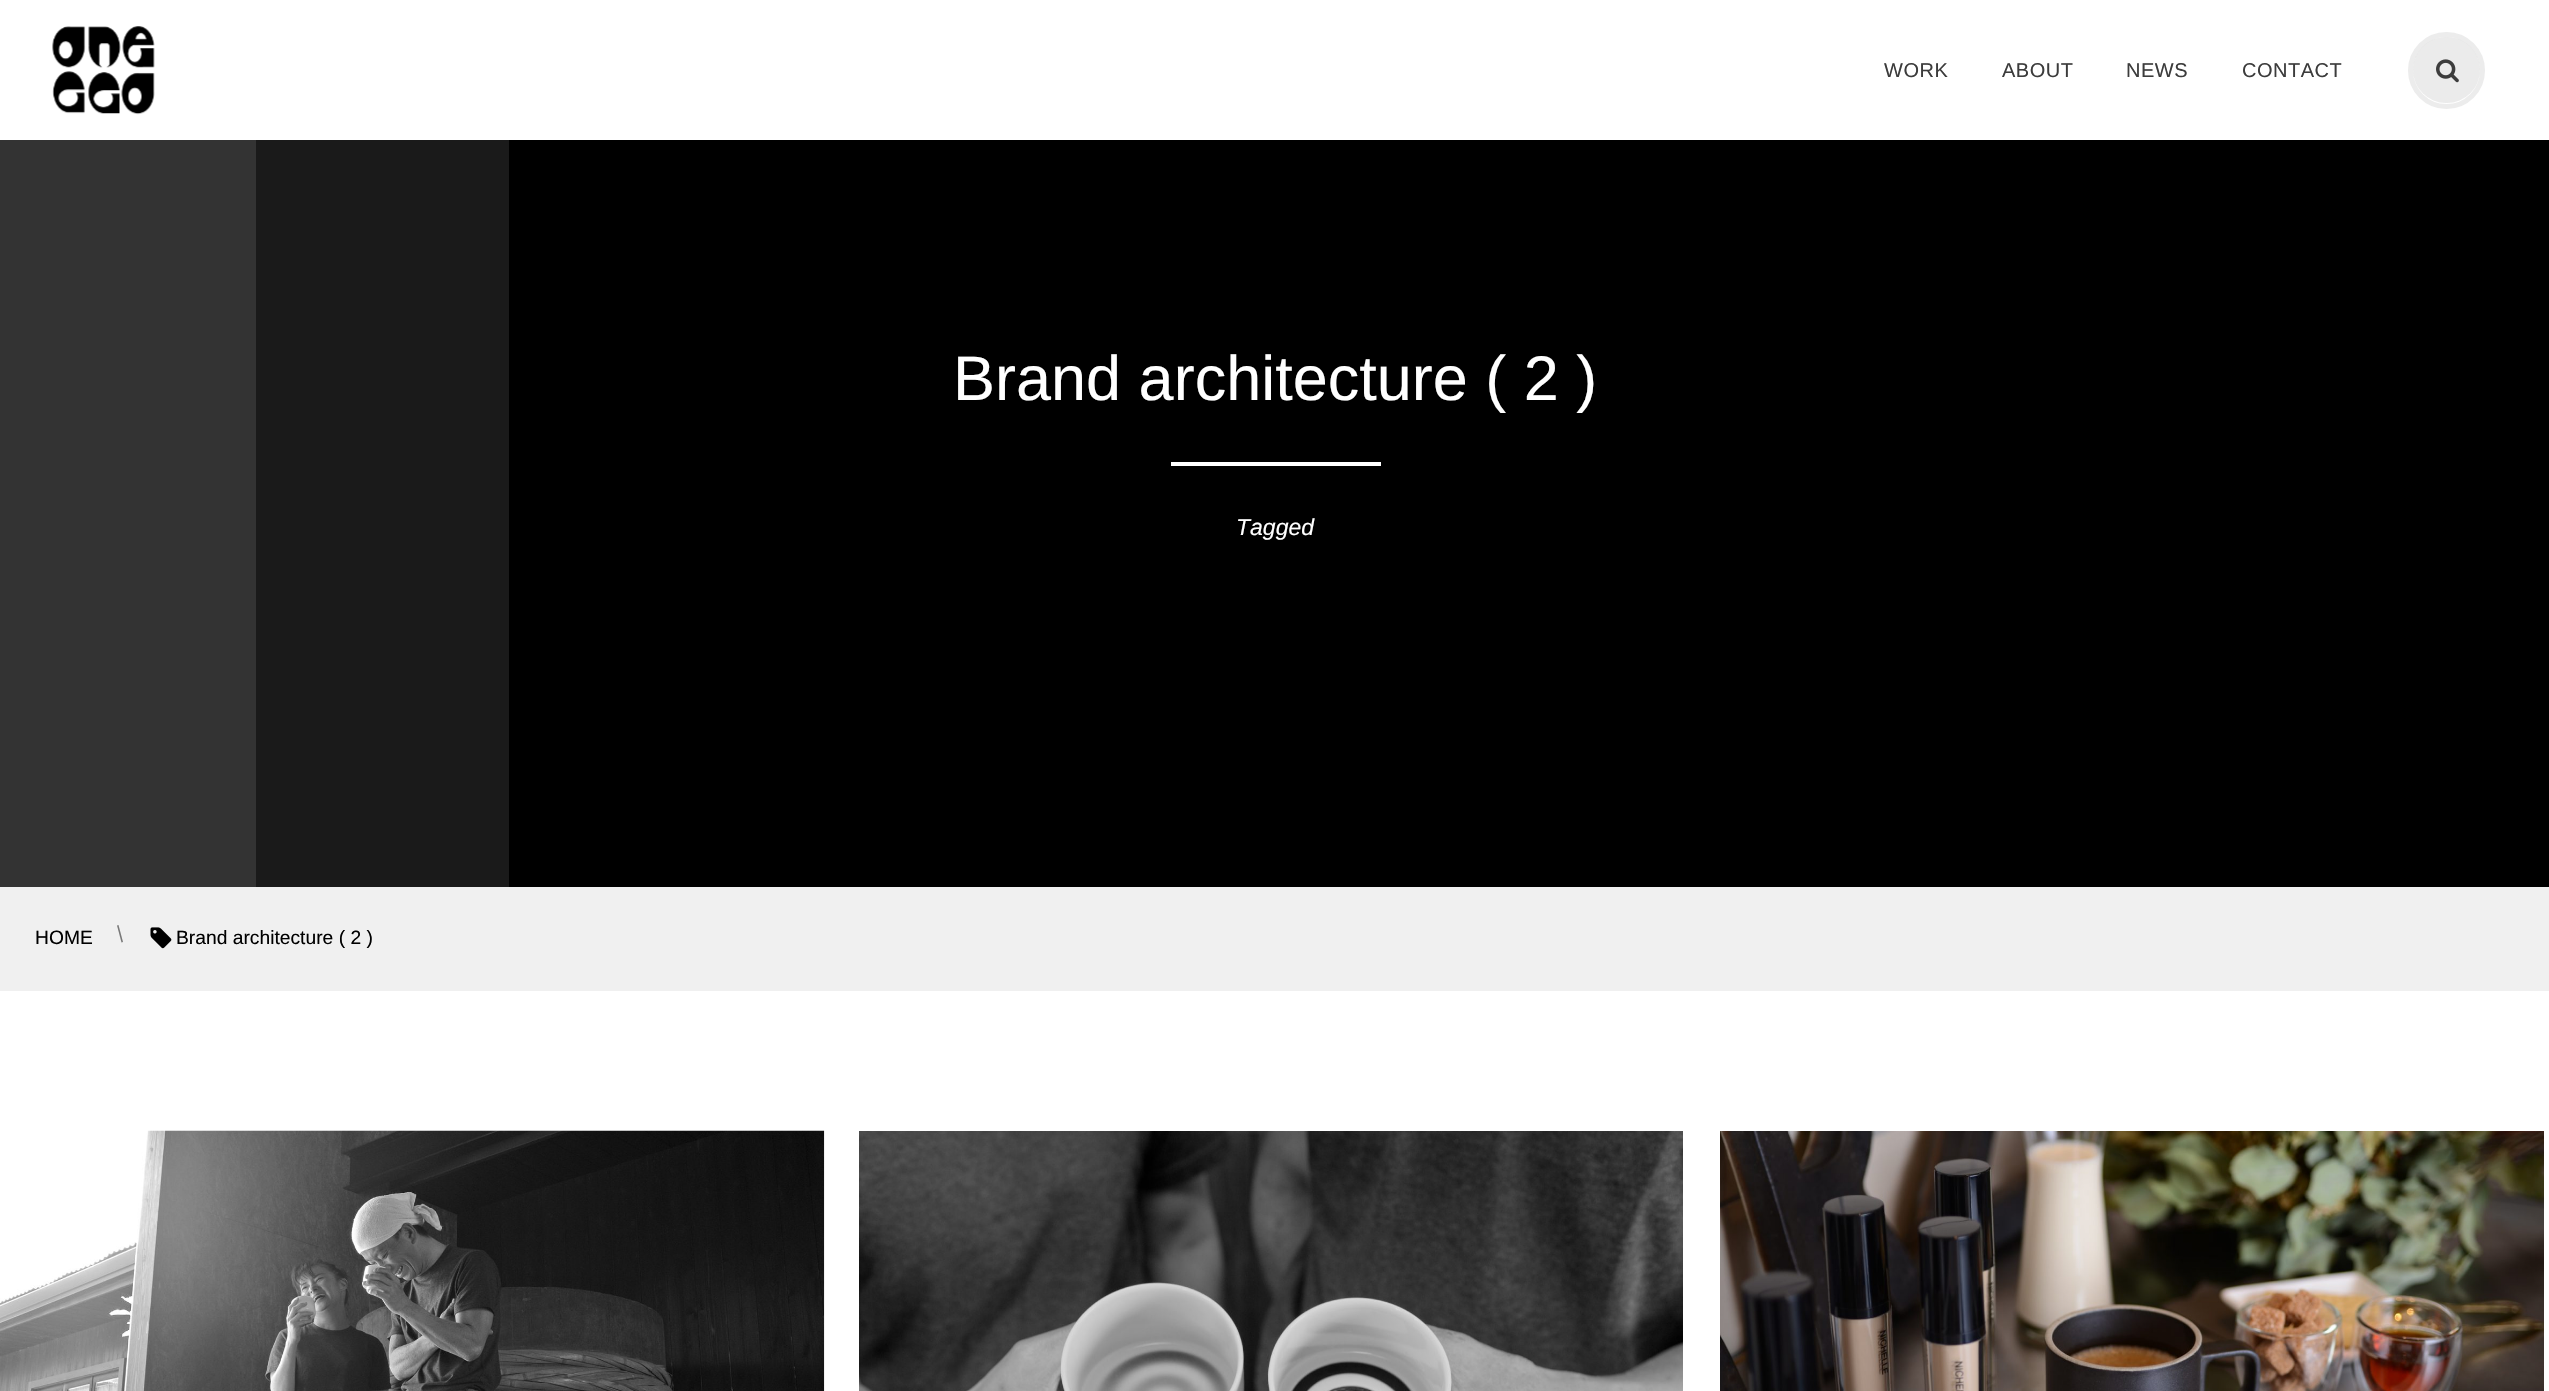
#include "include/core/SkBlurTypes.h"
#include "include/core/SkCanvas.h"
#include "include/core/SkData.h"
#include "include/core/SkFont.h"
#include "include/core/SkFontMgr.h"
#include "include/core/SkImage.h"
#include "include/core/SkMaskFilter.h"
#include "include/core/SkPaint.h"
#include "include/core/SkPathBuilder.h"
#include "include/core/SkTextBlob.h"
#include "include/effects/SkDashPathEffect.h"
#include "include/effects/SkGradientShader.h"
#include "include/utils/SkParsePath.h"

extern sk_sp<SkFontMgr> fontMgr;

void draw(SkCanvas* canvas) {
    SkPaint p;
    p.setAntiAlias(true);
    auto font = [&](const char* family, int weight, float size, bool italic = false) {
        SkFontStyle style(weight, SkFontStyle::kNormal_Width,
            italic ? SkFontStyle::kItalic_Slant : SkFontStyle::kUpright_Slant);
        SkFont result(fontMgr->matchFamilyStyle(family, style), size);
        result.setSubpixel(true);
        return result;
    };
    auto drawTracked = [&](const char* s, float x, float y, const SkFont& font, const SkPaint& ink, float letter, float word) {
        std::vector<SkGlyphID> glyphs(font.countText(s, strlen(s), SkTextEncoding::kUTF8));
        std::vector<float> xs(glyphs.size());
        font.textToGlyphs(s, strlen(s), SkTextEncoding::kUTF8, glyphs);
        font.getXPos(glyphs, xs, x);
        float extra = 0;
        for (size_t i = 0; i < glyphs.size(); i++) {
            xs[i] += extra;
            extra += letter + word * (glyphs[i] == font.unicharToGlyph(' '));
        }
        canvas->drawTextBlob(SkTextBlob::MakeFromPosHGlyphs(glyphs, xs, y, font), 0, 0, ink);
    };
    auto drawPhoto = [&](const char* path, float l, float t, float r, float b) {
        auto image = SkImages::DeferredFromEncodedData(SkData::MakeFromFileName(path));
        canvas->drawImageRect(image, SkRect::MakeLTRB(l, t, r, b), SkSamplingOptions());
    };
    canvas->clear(0xFFFFFFFF);
    drawPhoto("media/1.png", 52, 26, 155, 115);
    auto font1 = font("Liberation Sans", 400, 20);
    p.setColor(0xFF3C3C3C);
    {
        const struct { const char* s; float x, y; } items[] = {
            {"WORK", 1884, 77},
            {"ABOUT", 2002, 77},
            {"NEWS", 2126, 77},
            {"CONTACT", 2242, 77},
        };
        for (auto [s, x, y] : items) {
            drawTracked(s, x, y, font1, p, 0.5f, 0);
        }
    }
    p.setStyle(SkPaint::kStroke_Style);
    p.setStrokeWidth(5);
    p.setColor(0xFFECECEC);
    canvas->drawCircle(2446.5f, 70.5f, 36, p);
    p.setStyle(SkPaint::kFill_Style);
    p.setColor(0x1A3C3C3C);
    canvas->drawRoundRect(SkRect::MakeLTRB(2413, 37, 2480, 103), 33, 33, p);
    drawPhoto("media/2.png", 2436, 59, 2459, 83);
    {
        const struct { float l, t, r, b; SkColor color; } items[] = {
            {509, 140, 2549, 887, 0xFF000000},
            {0, 140, 256, 887, 0xFF333333},
            {256, 140, 509, 887, 0xFF1A1A1A},
        };
        for (auto [l, t, r, b, color] : items) {
            p.setColor(color);
            canvas->drawRect(SkRect::MakeLTRB(l, t, r, b), p);
        }
    }
    auto font2 = font("Liberation Sans", 400, 63);
    p.setColor(0xFFFFFFFF);
    canvas->drawString("Brand architecture ( 2 )", 953, 400, font2, p);
    canvas->drawRect(SkRect::MakeLTRB(1171, 462, 1381, 466), p);
    auto font3 = font("Liberation Sans", 400, 23, true);
    canvas->drawString("Tagged", 1236, 535, font3, p);
    p.setColor(0xFFF0F0F0);
    canvas->drawRect(SkRect::MakeLTRB(0, 887, 2549, 991), p);
    auto font4 = font("Liberation Sans", 400, 19.25f);
    p.setColor(0xFF000000);
    canvas->drawString("HOME", 35, 944, font4, p);
    p.setColor(0xFF787878);
    canvas->drawPath(SkPathBuilder().moveTo(117, 925.5f).lineTo(118.5f, 925).lineTo(123, 942).lineTo(121.5f, 942.5f).close().detach(), p);
    drawPhoto("media/3.png", 150, 927, 172, 949);
    p.setColor(0xFF000000);
    canvas->drawString("Brand architecture ( 2 )", 176, 944, font4, p);
    drawPhoto("media/4.png", 0, 1130, 825, 1391);
    drawPhoto("media/5.png", 859, 1131, 1683, 1391);
    drawPhoto("media/6.png", 1720, 1131, 2544, 1391);
}
